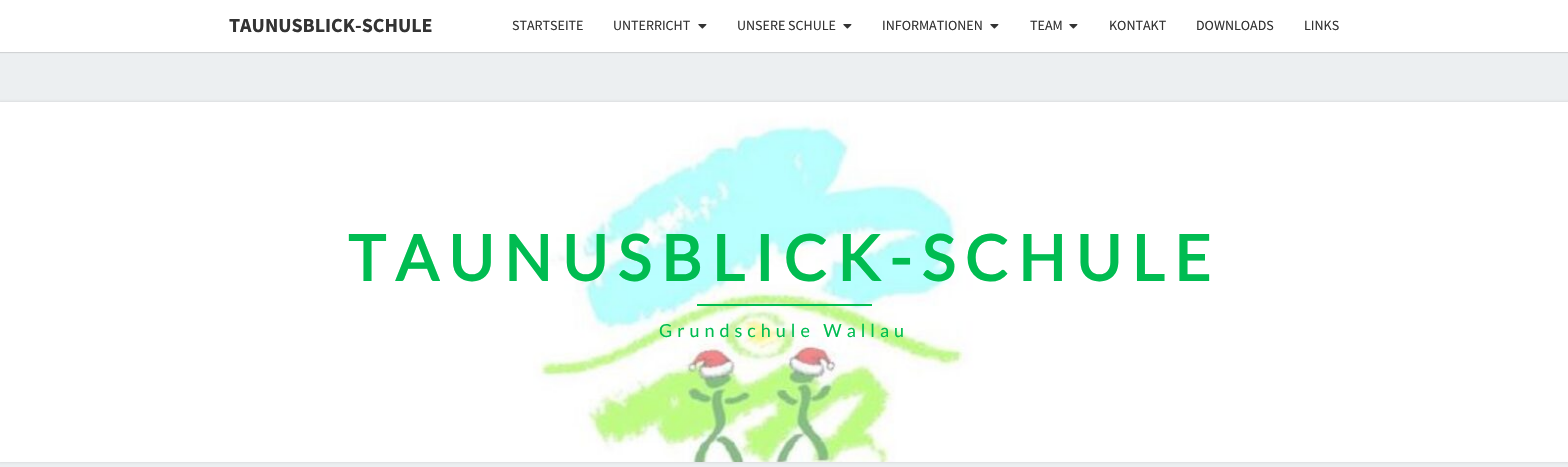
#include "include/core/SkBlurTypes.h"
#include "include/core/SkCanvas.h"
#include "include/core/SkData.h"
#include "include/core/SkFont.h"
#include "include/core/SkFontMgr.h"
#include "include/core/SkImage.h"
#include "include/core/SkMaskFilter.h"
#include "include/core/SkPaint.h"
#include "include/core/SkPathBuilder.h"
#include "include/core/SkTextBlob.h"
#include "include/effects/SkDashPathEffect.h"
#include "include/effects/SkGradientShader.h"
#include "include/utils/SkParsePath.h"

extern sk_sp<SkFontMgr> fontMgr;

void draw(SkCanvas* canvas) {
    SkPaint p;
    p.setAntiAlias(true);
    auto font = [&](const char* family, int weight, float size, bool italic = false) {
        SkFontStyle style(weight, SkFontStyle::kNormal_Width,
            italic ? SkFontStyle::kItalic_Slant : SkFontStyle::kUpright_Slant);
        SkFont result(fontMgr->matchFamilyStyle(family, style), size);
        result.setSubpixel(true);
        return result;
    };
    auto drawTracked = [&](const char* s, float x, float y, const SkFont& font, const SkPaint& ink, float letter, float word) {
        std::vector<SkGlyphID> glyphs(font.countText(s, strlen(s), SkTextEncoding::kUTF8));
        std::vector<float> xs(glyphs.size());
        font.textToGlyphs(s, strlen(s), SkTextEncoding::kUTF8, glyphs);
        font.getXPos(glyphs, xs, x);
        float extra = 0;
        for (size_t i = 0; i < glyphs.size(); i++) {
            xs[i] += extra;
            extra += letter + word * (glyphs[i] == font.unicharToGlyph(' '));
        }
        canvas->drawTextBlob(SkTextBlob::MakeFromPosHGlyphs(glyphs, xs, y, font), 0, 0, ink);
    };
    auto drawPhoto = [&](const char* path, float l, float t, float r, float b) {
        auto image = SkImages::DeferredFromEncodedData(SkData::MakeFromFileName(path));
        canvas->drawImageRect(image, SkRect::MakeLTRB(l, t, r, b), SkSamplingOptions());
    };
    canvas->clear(0xFFECEFF1);
    p.setColor(0x33646464);
    p.setMaskFilter(SkMaskFilter::MakeBlur(kNormal_SkBlurStyle, 0.5f));
    canvas->drawRect(SkRect::MakeLTRB(0, 1, 1568, 53), p);
    p.setMaskFilter(nullptr);
    p.setColor(0xFFFFFFFF);
    canvas->drawRect(SkRect::MakeLTRB(0, 0, 1568, 52), p);
    auto font1 = font("Source Sans Pro", 700, 20);
    p.setColor(0xFF333333);
    canvas->drawString("TAUNUSBLICK-SCHULE", 229, 32, font1, p);
    auto font2 = font("Source Sans Pro", 400, 14);
    canvas->drawString("STARTSEITE", 512, 30, font2, p);
    canvas->drawString("UNTERRICHT", 613, 30, font2, p);
    drawPhoto("media/1.png", 698, 24, 707, 29);
    canvas->drawString("UNSERE SCHULE", 737, 30, font2, p);
    drawPhoto("media/1.png", 843, 24, 852, 29);
    canvas->drawString("INFORMATIONEN", 882, 30, font2, p);
    drawPhoto("media/1.png", 990, 24, 999, 29);
    canvas->drawString("TEAM", 1030, 30, font2, p);
    drawPhoto("media/1.png", 1069, 24, 1078, 29);
    {
        const struct { const char* s; float x, y; } items[] = {
            {"KONTAKT", 1109, 30},
            {"DOWNLOADS", 1196, 30},
            {"LINKS", 1304, 30},
        };
        for (auto [s, x, y] : items) {
            canvas->drawString(s, x, y, font2, p);
        }
    }
    p.setColor(0x4DB6B6B6);
    p.setMaskFilter(SkMaskFilter::MakeBlur(kNormal_SkBlurStyle, 1));
    canvas->drawRect(SkRect::MakeLTRB(-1, 101, 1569, 463), p);
    p.setMaskFilter(nullptr);
    drawPhoto("media/2.png", 0, 102, 1568, 462);
    auto font3 = font("Lato", 700, 63);
    p.setColor(0xFF00BC51);
    drawTracked("TAUNUSBLICK-SCHULE", 348, 281, font3, p, 10, 0);
    canvas->drawRect(SkRect::MakeLTRB(697, 304, 872, 306), p);
    auto font4 = font("Lato", 400, 18);
    drawTracked("Grundschule Wallau", 659, 337, font4, p, 5, 0);
}
